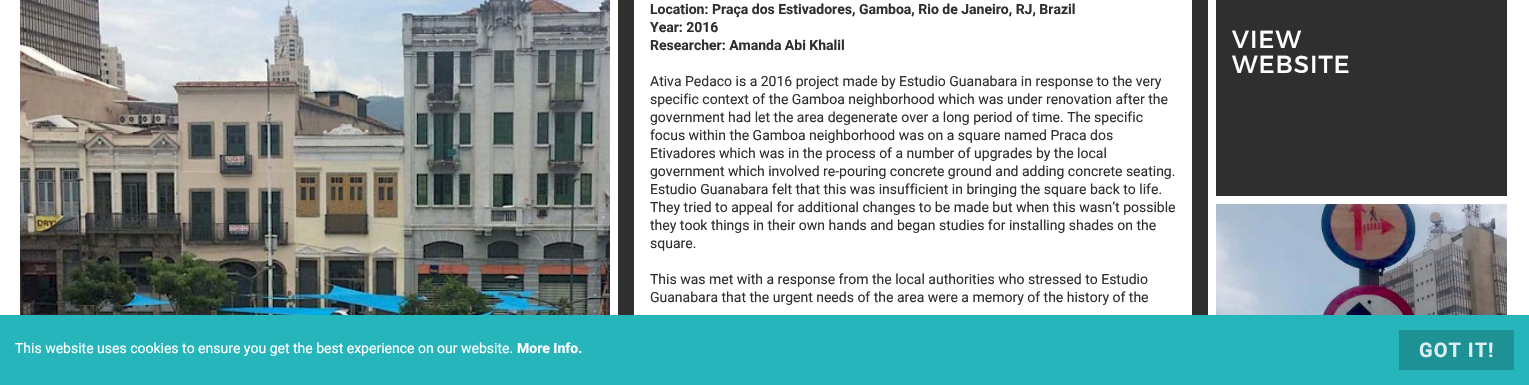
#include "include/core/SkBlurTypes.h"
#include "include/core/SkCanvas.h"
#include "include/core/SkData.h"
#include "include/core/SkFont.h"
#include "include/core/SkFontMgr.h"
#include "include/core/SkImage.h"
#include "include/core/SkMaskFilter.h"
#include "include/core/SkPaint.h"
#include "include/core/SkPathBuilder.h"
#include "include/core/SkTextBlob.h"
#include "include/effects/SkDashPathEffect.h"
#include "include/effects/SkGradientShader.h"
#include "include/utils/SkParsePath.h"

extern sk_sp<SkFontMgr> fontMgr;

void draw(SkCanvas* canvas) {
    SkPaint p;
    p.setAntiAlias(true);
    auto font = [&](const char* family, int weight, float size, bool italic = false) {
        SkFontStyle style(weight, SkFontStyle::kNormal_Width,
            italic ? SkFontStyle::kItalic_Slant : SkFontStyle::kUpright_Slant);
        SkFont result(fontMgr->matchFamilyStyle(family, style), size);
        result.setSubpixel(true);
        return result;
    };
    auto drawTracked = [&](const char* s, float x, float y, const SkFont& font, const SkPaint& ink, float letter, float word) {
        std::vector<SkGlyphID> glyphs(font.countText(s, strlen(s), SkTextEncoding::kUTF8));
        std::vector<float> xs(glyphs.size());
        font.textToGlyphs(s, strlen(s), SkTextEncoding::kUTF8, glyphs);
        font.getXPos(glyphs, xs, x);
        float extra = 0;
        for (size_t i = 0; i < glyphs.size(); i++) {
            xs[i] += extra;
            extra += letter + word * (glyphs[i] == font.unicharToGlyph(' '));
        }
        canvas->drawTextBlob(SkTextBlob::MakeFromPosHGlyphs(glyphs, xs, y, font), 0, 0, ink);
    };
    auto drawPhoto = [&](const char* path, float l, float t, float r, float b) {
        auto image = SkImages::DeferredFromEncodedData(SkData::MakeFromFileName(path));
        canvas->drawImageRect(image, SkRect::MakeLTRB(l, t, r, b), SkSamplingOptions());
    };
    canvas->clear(0xFFFFFFFF);
    drawPhoto("media/1.png", 20, 0, 610, 315);
    p.setColor(0xFF2F2F2F);
    canvas->drawRect(SkRect::MakeLTRB(618, 0, 1208, 315), p);
    p.setColor(0xFFFFFFFF);
    canvas->drawRect(SkRect::MakeLTRB(634, 0, 1192, 315), p);
    auto font1 = font("Roboto", 700, 14);
    p.setColor(0xFF2F2F2F);
    {
        const struct { const char* s; float x, y; } items[] = {
            {"Location: Praça dos Estivadores, Gamboa, Rio de Janeiro, RJ, Brazil", 650, 14},
            {"Year: 2016", 650, 32},
            {"Researcher: Amanda Abi Khalil", 650, 50},
        };
        for (auto [s, x, y] : items) {
            canvas->drawString(s, x, y, font1, p);
        }
    }
    auto font2 = font("Roboto", 400, 14);
    {
        const struct { const char* s; float x, y; } items[] = {
            {"Ativa Pedaco is a 2016 project made by Estudio Guanabara in response to the very", 650, 86},
            {"specific context of the Gamboa neighborhood which was under renovation after the", 650, 104},
            {"government had let the area degenerate over a long period of time. The specific", 650, 122},
            {"focus within the Gamboa neighborhood was on a square named Praca dos", 650, 140},
            {"Etivadores which was in the process of a number of upgrades by the local", 650, 158},
            {"government which involved re-pouring concrete ground and adding concrete seating.", 650, 176},
            {"Estudio Guanabara felt that this was insufficient in bringing the square back to life.", 650, 194},
            {"They tried to appeal for additional changes to be made but when this wasn’t possible", 650, 212},
            {"they took things in their own hands and began studies for installing shades on the", 650, 230},
            {"square.", 650, 248},
            {"This was met with a response from the local authorities who stressed to Estudio", 650, 284},
            {"Guanabara that the urgent needs of the area were a memory of the history of the", 650, 302},
        };
        for (auto [s, x, y] : items) {
            canvas->drawString(s, x, y, font2, p);
        }
    }
    canvas->drawRect(SkRect::MakeLTRB(1216, 0, 1507, 196), p);
    auto font3 = font("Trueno", 400, 24.5f);
    p.setColor(0xFFFFFFFF);
    drawTracked("VIEW", 1232, 48, font3, p, 1, 0);
    drawTracked("WEBSITE", 1232, 73, font3, p, 1, 0);
    drawPhoto("media/2.png", 1216, 204, 1507, 315);
    p.setColor(0xFF26B5BA);
    canvas->drawRect(SkRect::MakeLTRB(0, 315, 1529, 385), p);
    p.setColor(0xFFFFFFFF);
    canvas->drawString("This website uses cookies to ensure you get the best experience on our website.", 15, 353, font2, p);
    canvas->drawString("More Info.", 517, 353, font1, p);
    p.setColor(0xFF1E9195);
    canvas->drawRect(SkRect::MakeLTRB(1399, 330, 1514, 370), p);
    auto font4 = font("Roboto", 700, 20);
    p.setColor(0xFFDDEFEF);
    drawTracked("GOT IT!", 1419, 357, font4, p, 1, 0);
}
